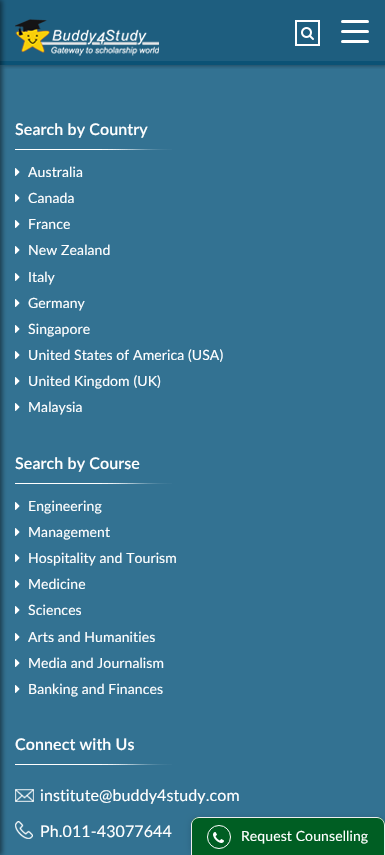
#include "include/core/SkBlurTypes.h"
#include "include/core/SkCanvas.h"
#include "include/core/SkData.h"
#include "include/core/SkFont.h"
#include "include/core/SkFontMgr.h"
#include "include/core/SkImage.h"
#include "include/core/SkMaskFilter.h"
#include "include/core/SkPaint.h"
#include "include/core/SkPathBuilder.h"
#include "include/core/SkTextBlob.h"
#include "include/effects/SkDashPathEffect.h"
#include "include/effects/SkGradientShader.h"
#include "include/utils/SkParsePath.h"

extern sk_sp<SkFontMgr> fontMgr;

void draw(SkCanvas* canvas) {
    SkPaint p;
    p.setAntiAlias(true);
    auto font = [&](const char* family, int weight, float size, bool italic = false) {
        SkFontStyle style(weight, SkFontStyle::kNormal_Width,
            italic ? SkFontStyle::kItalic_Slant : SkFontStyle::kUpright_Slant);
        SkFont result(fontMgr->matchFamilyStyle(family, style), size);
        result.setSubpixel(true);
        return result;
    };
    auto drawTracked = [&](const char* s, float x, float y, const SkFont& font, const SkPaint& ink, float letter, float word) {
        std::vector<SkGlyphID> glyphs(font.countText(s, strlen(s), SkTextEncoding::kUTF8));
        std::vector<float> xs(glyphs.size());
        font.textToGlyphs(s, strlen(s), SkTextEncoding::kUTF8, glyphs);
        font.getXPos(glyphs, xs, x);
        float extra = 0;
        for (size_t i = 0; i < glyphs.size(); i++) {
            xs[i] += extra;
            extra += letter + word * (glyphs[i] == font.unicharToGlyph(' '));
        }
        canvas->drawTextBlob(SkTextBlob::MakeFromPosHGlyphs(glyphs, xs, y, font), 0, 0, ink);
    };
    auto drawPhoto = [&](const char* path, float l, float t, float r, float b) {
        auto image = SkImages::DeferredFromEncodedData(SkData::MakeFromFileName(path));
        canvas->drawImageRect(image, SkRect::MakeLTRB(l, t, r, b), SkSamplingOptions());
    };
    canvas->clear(0xFF1E5E7F);
    p.setColor(0xFF337292);
    canvas->drawRect(SkRect::MakeLTRB(0, 65, 385, 855), p);
    p.setColor(0xFF0B5275);
    canvas->drawRect(SkRect::MakeLTRB(0, 61, 385, 65), p);
    canvas->save();
    canvas->clipRect(SkRect::MakeLTRB(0, 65, 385, 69));
    p.setColor(0x80000000);
    p.setMaskFilter(SkMaskFilter::MakeBlur(kNormal_SkBlurStyle, 2.5f));
    canvas->drawRect(SkRect::MakeLTRB(3, 0, 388, 65), p);
    p.setMaskFilter(nullptr);
    canvas->restore();
    drawPhoto("media/1.png", 15, 19, 159, 56);
    p.setStyle(SkPaint::kStroke_Style);
    p.setStrokeWidth(2);
    p.setColor(0xFFFFFFFF);
    canvas->drawRect(SkRect::MakeLTRB(296, 21, 319, 45), p);
    drawPhoto("media/2.png", 301, 27, 314, 40);
    p.setStyle(SkPaint::kFill_Style);
    canvas->drawRoundRect(SkRect::MakeLTRB(341, 30, 369, 33), 1.5f, 1.5f, p);
    canvas->drawRoundRect(SkRect::MakeLTRB(341, 20, 369, 23), 1.5f, 1.5f, p);
    canvas->drawRoundRect(SkRect::MakeLTRB(341, 40, 369, 43), 1.5f, 1.5f, p);
    p.setColor(0x80000000);
    p.setMaskFilter(SkMaskFilter::MakeBlur(kNormal_SkBlurStyle, 2.5f));
    canvas->drawRect(SkRect::MakeLTRB(-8, 0, 2, 855), p);
    p.setMaskFilter(nullptr);
    auto font1 = font("Lato", 600, 16);
    p.setColor(0xFFFFFFFF);
    drawTracked("Search by Country", 15, 135, font1, p, 0.1f, 0);
    drawPhoto("media/3.png", 15, 149, 172, 150);
    drawPhoto("media/4.png", 15, 168, 20, 176);
    auto font2 = font("Lato", 400, 14);
    drawTracked("Australia", 28, 177, font2, p, 0.1f, 0);
    drawPhoto("media/4.png", 15, 194, 20, 202);
    drawTracked("Canada", 28, 203, font2, p, 0.1f, 0);
    drawPhoto("media/4.png", 15, 220, 20, 228);
    drawTracked("France", 28, 229, font2, p, 0.1f, 0);
    drawPhoto("media/4.png", 15, 246, 20, 254);
    drawTracked("New Zealand", 28, 255, font2, p, 0.1f, 0);
    drawPhoto("media/4.png", 15, 273, 20, 281);
    drawTracked("Italy", 28, 282, font2, p, 0.1f, 0);
    drawPhoto("media/4.png", 15, 299, 20, 307);
    drawTracked("Germany", 28, 308, font2, p, 0.1f, 0);
    drawPhoto("media/4.png", 15, 325, 20, 333);
    drawTracked("Singapore", 28, 334, font2, p, 0.1f, 0);
    drawPhoto("media/4.png", 15, 351, 20, 359);
    drawTracked("United States of America (USA)", 28, 360, font2, p, 0.1f, 0);
    drawPhoto("media/4.png", 15, 377, 20, 385);
    drawTracked("United Kingdom (UK)", 28, 386, font2, p, 0.1f, 0);
    drawPhoto("media/4.png", 15, 403, 20, 411);
    drawTracked("Malaysia", 28, 412, font2, p, 0.1f, 0);
    drawTracked("Search by Course", 15, 469, font1, p, 0.1f, 0);
    drawPhoto("media/3.png", 15, 483, 172, 484);
    drawPhoto("media/4.png", 15, 502, 20, 510);
    drawTracked("Engineering", 28, 511, font2, p, 0.1f, 0);
    drawPhoto("media/4.png", 15, 528, 20, 536);
    drawTracked("Management", 28, 537, font2, p, 0.1f, 0);
    drawPhoto("media/4.png", 15, 554, 20, 562);
    drawTracked("Hospitality and Tourism", 28, 563, font2, p, 0.1f, 0);
    drawPhoto("media/4.png", 15, 580, 20, 588);
    drawTracked("Medicine", 28, 589, font2, p, 0.1f, 0);
    drawPhoto("media/4.png", 15, 606, 20, 614);
    drawTracked("Sciences", 28, 615, font2, p, 0.1f, 0);
    drawPhoto("media/4.png", 15, 633, 20, 641);
    drawTracked("Arts and Humanities", 28, 642, font2, p, 0.1f, 0);
    drawPhoto("media/4.png", 15, 659, 20, 667);
    drawTracked("Media and Journalism", 28, 668, font2, p, 0.1f, 0);
    drawPhoto("media/4.png", 15, 685, 20, 693);
    drawTracked("Banking and Finances", 28, 694, font2, p, 0.1f, 0);
    drawTracked("Connect with Us", 15, 750, font1, p, 0.1f, 0);
    drawPhoto("media/3.png", 15, 764, 172, 765);
    drawPhoto("media/5.png", 15, 789, 34, 802);
    auto font3 = font("Lato", 400, 16);
    drawTracked("institute@buddy4study.com", 40, 801, font3, p, 0.1f, 0);
    drawPhoto("media/6.png", 15, 821, 33, 839);
    drawTracked("Ph.011-43077644", 40, 837, font3, p, 0.1f, 0);
    p.setColor(0x26000000);
    p.setMaskFilter(SkMaskFilter::MakeBlur(kNormal_SkBlurStyle, 3));
    canvas->drawRoundRect(SkRect::MakeLTRB(191, 818, 385, 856), 8, 8, p);
    p.setMaskFilter(nullptr);
    p.setColor(0xFF005E23);
    canvas->drawPath(SkPathBuilder().moveTo(199, 817).lineTo(377, 817).cubicTo(381.5f, 817, 385, 820.5f, 385, 825).lineTo(385, 855).lineTo(191, 855).lineTo(191, 825).cubicTo(191, 820.5f, 194.5f, 817, 199, 817).close().detach(), p);
    p.setColor(0xFFEEEEEE);
    canvas->drawPath(SkPathBuilder(SkPathFillType::kEvenOdd).moveTo(199, 817).lineTo(377, 817).cubicTo(381, 817, 385, 821, 385, 825).lineTo(385, 855).lineTo(191, 855).lineTo(191, 825).cubicTo(191, 821, 195, 817, 199, 817).close().moveTo(199, 818).lineTo(377, 818).cubicTo(381, 818, 384, 821, 384, 825).lineTo(384, 855).lineTo(192, 855).lineTo(192, 825).cubicTo(192, 821, 195, 818, 199, 818).close().detach(), p);
    p.setStyle(SkPaint::kStroke_Style);
    p.setStrokeWidth(1);
    p.setColor(0xFFFFFFFF);
    canvas->drawCircle(219, 837, 11.5f, p);
    drawPhoto("media/7.png", 213, 832, 224, 843);
    p.setStyle(SkPaint::kFill_Style);
    drawTracked("Request Counselling", 241, 841, font2, p, 0.1f, 0);
}
